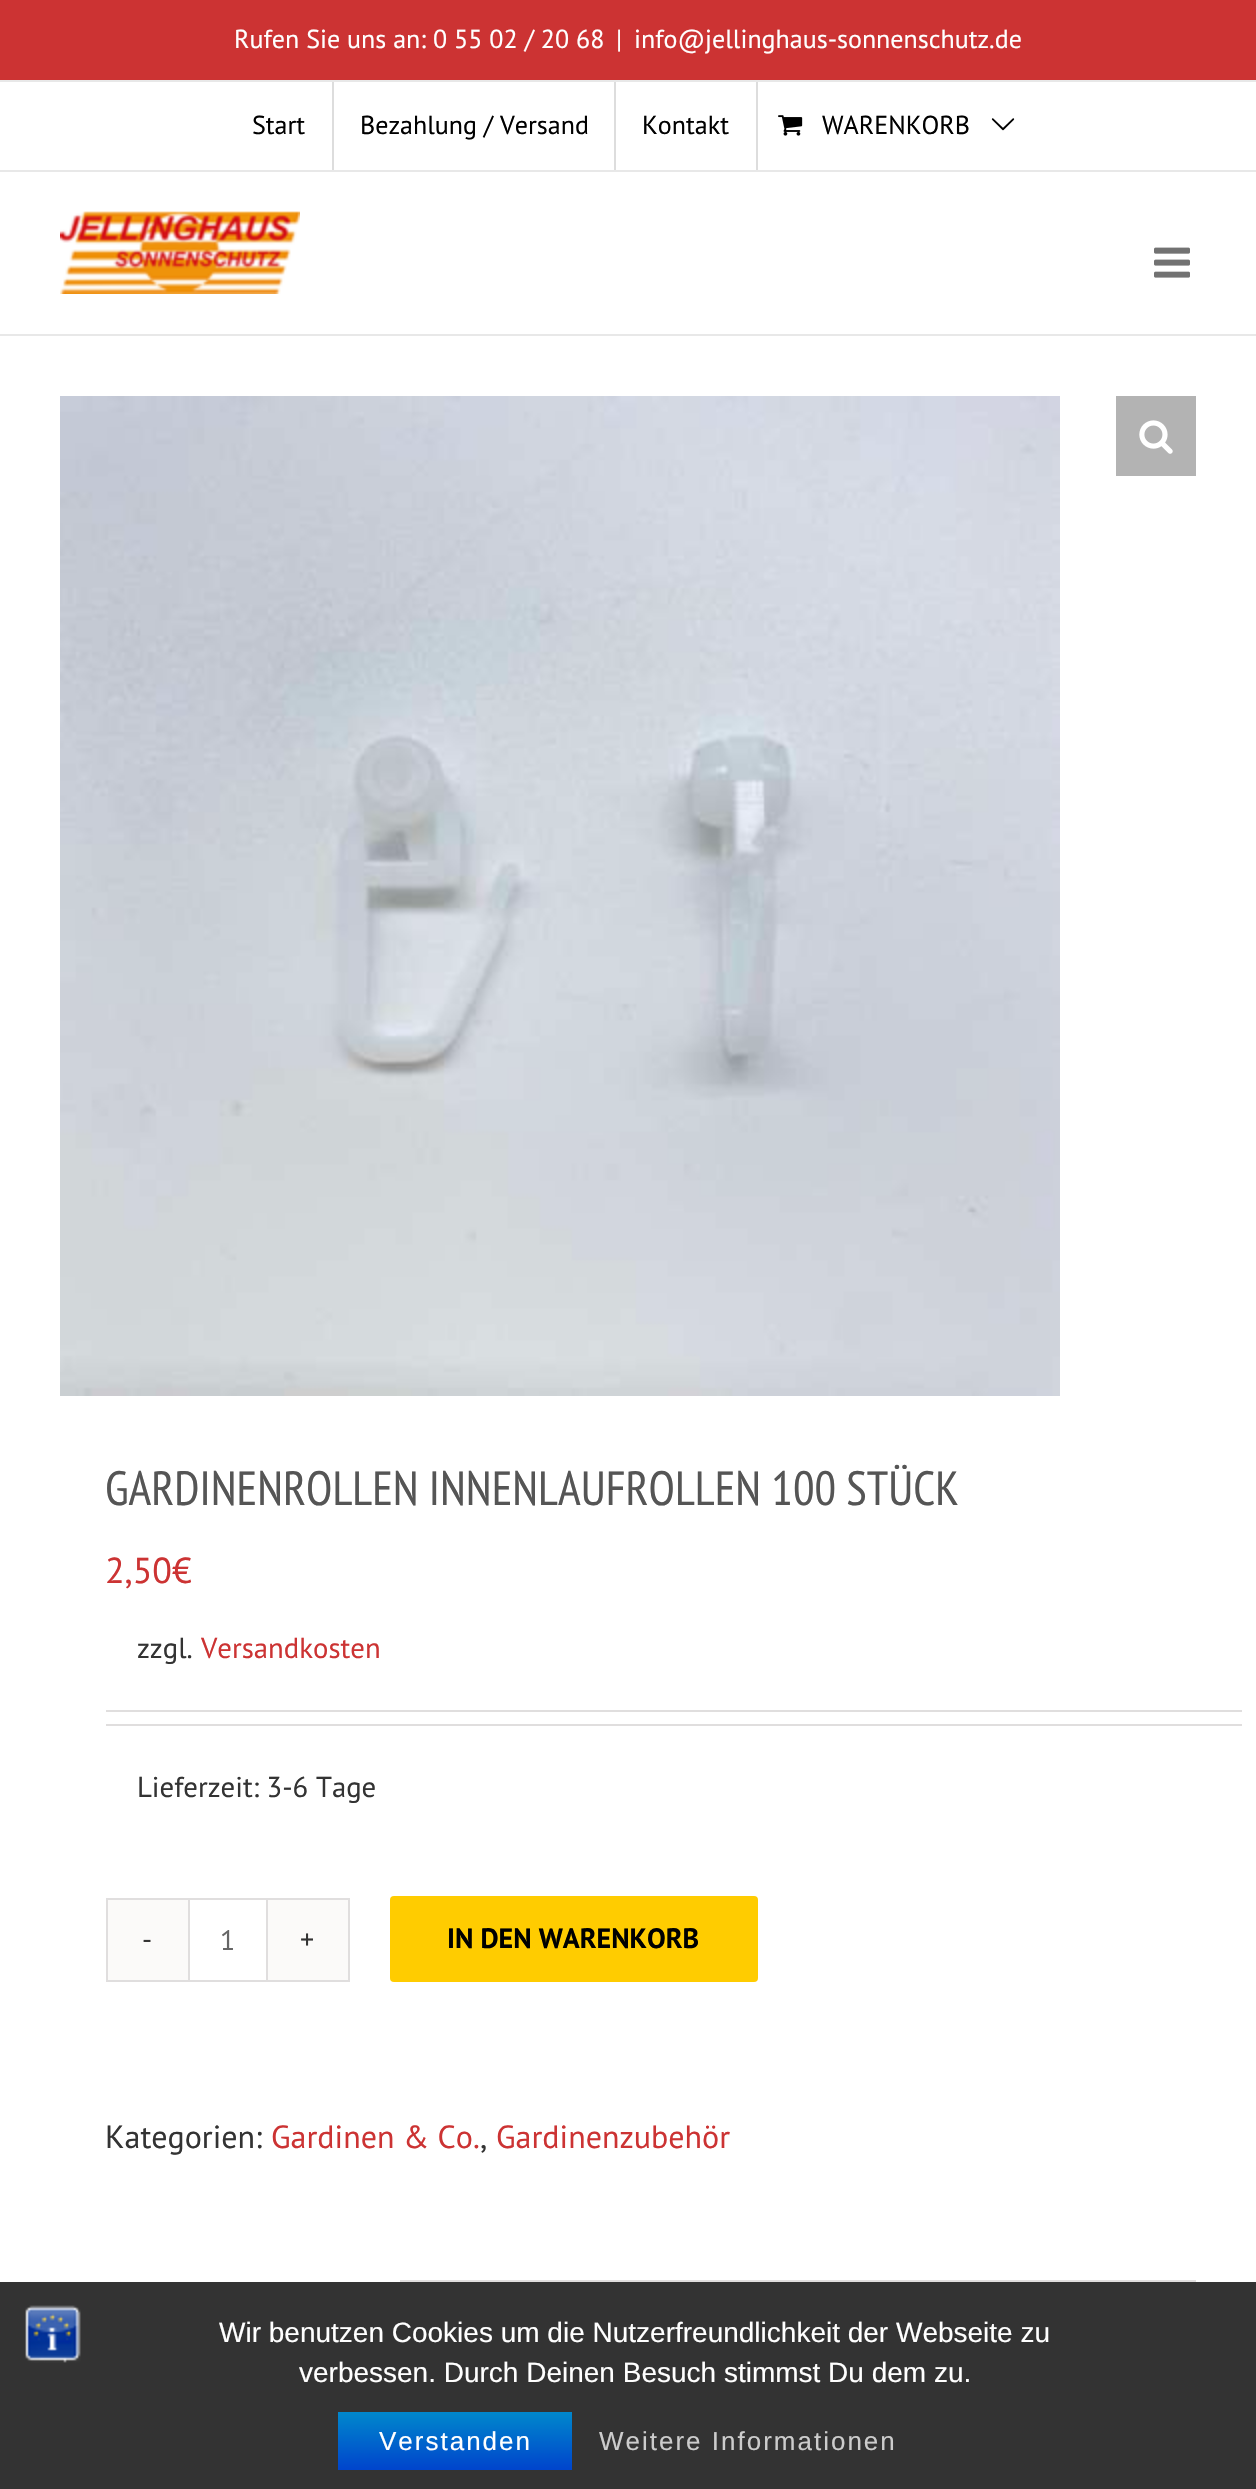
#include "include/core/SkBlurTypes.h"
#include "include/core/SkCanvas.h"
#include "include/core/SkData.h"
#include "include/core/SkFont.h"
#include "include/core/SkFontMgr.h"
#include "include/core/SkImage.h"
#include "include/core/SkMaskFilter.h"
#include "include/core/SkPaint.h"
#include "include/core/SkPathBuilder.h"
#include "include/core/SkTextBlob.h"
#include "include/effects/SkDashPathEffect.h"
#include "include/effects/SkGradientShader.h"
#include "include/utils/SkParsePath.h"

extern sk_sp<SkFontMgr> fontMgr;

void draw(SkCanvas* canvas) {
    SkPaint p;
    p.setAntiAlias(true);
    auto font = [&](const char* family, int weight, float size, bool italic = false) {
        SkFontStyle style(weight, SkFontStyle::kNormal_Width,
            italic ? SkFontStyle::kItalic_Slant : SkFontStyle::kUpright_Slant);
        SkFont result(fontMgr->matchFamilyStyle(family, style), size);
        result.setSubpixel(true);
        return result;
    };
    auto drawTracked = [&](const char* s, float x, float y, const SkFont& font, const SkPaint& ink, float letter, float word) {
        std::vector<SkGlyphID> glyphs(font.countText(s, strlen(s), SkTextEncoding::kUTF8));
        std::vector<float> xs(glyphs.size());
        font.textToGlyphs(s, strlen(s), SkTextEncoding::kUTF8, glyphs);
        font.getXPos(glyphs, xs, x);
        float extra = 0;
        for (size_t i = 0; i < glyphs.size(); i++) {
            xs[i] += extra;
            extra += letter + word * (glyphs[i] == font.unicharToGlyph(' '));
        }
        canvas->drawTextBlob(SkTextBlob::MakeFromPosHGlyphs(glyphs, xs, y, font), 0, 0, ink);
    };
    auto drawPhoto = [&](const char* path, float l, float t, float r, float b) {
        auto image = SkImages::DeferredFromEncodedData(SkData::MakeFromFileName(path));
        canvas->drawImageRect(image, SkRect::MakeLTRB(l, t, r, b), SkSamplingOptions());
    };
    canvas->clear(0xFFFFFFFF);
    {
        const struct { float l, t, r, b; SkColor color; } items[] = {
            {0, 0, 1256, 80, 0xFFCC3333},
            {0, 170, 1256, 172, 0xFFE8E8E8},
            {0, 80, 1256, 82, 0xFFE8E8E8},
        };
        for (auto [l, t, r, b, color] : items) {
            p.setColor(color);
            canvas->drawRect(SkRect::MakeLTRB(l, t, r, b), p);
        }
    }
    auto font1 = font("PT Sans", 400, 26);
    p.setColor(0xFFFFFFFF);
    {
        const struct { const char* s; float x, y; } items[] = {
            {"Rufen Sie uns an: 0 55 02 / 20 68", 234, 48},
            {"|", 616, 48},
            {"info@jellinghaus-sonnenschutz.de", 634, 48},
        };
        for (auto [s, x, y] : items) {
            canvas->drawString(s, x, y, font1, p);
        }
    }
    p.setColor(0xFF000000);
    canvas->drawString("Start", 252, 134, font1, p);
    p.setColor(0xFFDDDDDD);
    canvas->drawRect(SkRect::MakeLTRB(332, 82, 334, 170), p);
    p.setColor(0xFF000000);
    canvas->drawString("Bezahlung / Versand", 360, 134, font1, p);
    p.setColor(0xFFDDDDDD);
    canvas->drawRect(SkRect::MakeLTRB(614, 82, 616, 170), p);
    p.setColor(0xFF000000);
    canvas->drawString("Kontakt", 642, 134, font1, p);
    p.setColor(0xFFDDDDDD);
    canvas->drawRect(SkRect::MakeLTRB(756, 82, 758, 170), p);
    drawPhoto("media/1.png", 778, 115, 803, 136);
    p.setColor(0xFF000000);
    canvas->drawString("WARENKORB", 822, 134, font1, p);
    drawPhoto("media/2.png", 991, 118, 1015, 131);
    p.setColor(0xFFE8E8E8);
    canvas->drawRect(SkRect::MakeLTRB(0, 334, 1256, 336), p);
    drawPhoto("media/3.png", 60, 211, 300, 294);
    drawPhoto("media/4.png", 1154, 247, 1190, 278);
    drawPhoto("media/5.png", 60, 396, 1060, 1396);
    p.setColor(0xFFB3B3B3);
    canvas->drawRect(SkRect::MakeLTRB(1116, 396, 1196, 476), p);
    drawPhoto("media/6.png", 1139, 420, 1173, 454);
    auto font2 = font("PT Sans Narrow", 400, 48);
    p.setColor(0xFF555555);
    canvas->drawString("GARDINENROLLEN INNENLAUFROLLEN 100 STÜCK", 105, 1505, font2, p);
    auto font3 = font("PT Sans", 400, 36);
    p.setColor(0xFFCC3333);
    canvas->drawString("2,50€", 105, 1583, font3, p);
    auto font4 = font("PT Sans", 400, 28.75f);
    p.setColor(0xFF333333);
    canvas->drawString("zzgl.", 137, 1658, font4, p);
    p.setColor(0xFFCC3333);
    canvas->drawString("Versandkosten", 201, 1658, font4, p);
    p.setColor(0xFFE0DEDE);
    canvas->drawRect(SkRect::MakeLTRB(106, 1710, 1242, 1712), p);
    canvas->drawRect(SkRect::MakeLTRB(106, 1724, 1242, 1726), p);
    p.setColor(0xFF333333);
    canvas->drawString("Lieferzeit: 3-6 Tage", 137, 1797, font4, p);
    p.setStyle(SkPaint::kStroke_Style);
    p.setStrokeWidth(2);
    p.setColor(0xFFE0DEDE);
    canvas->drawRect(SkRect::MakeLTRB(107, 1899, 349, 1981), p);
    p.setStyle(SkPaint::kFill_Style);
    p.setColor(0xFFFBFAF9);
    canvas->drawRect(SkRect::MakeLTRB(108, 1900, 188, 1980), p);
    auto font5 = font("PT Sans", 400, 28);
    p.setColor(0xFF333333);
    canvas->drawString("-", 142, 1949, font5, p);
    p.setColor(0xFFE0DEDE);
    canvas->drawRect(SkRect::MakeLTRB(266, 1900, 268, 1980), p);
    canvas->drawRect(SkRect::MakeLTRB(188, 1900, 190, 1980), p);
    p.setColor(0xFF666666);
    canvas->drawString("1", 220, 1950, font5, p);
    p.setColor(0xFFFBFAF9);
    canvas->drawRect(SkRect::MakeLTRB(268, 1900, 348, 1980), p);
    p.setColor(0xFF333333);
    canvas->drawString("+", 300, 1949, font5, p);
    p.setColor(0xFFFFCC00);
    canvas->drawRoundRect(SkRect::MakeLTRB(390, 1896, 758, 1982), 4, 4, p);
    auto font6 = font("PT Sans", 700, 28);
    p.setColor(0xFF000000);
    canvas->drawString("IN DEN WARENKORB", 447, 1948, font6, p);
    auto font7 = font("PT Sans", 400, 32);
    p.setColor(0xFF333333);
    canvas->drawString("Kategorien:", 105, 2148, font7, p);
    p.setColor(0xFFCC3333);
    canvas->drawString("Gardinen & Co.", 271, 2148, font7, p);
    p.setColor(0xFF333333);
    canvas->drawString(",", 480, 2148, font7, p);
    p.setColor(0xFFCC3333);
    canvas->drawString("Gardinenzubehör", 496, 2148, font7, p);
    p.setStyle(SkPaint::kStroke_Style);
    p.setColor(0xFFE0DEDE);
    canvas->drawRect(SkRect::MakeLTRB(401, 2281, 1195, 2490), p);
    p.setStyle(SkPaint::kFill_Style);
    p.setColor(0xFF333333);
    canvas->drawRect(SkRect::MakeLTRB(0, 2282, 1256, 2489), p);
    drawPhoto("media/7.png", 25, 2305, 81, 2363);
    auto font8 = font("Liberation Sans", 400, 28);
    p.setColor(0xFFFFFFFF);
    canvas->drawString("Wir benutzen Cookies um die Nutzerfreundlichkeit der Webseite zu", 219, 2342, font8, p);
    canvas->drawString("verbessen. Durch Deinen Besuch stimmst Du dem zu.", 299, 2382, font8, p);
    {
        const SkColor colors[] = {0xFF0088CC, 0xFF0044CC};
        const float stops[] = {0, 1};
        const SkPoint ends[] = {{455, 2412}, {455, 2470}};
        p.setShader(SkGradientShader::MakeLinear(ends, colors, stops, 2, SkTileMode::kClamp));
        p.setAlpha(255);
    }
    canvas->drawRect(SkRect::MakeLTRB(338, 2412, 572, 2470), p);
    auto font9 = font("Liberation Sans", 400, 26);
    p.setShader(nullptr);
    p.setColor(0xFFFFFFFF);
    drawTracked("Verstanden", 379, 2450, font9, p, 2, 0);
    p.setColor(0xFFCCCCCC);
    drawTracked("Weitere Informationen", 599, 2450, font9, p, 2, 0);
}
